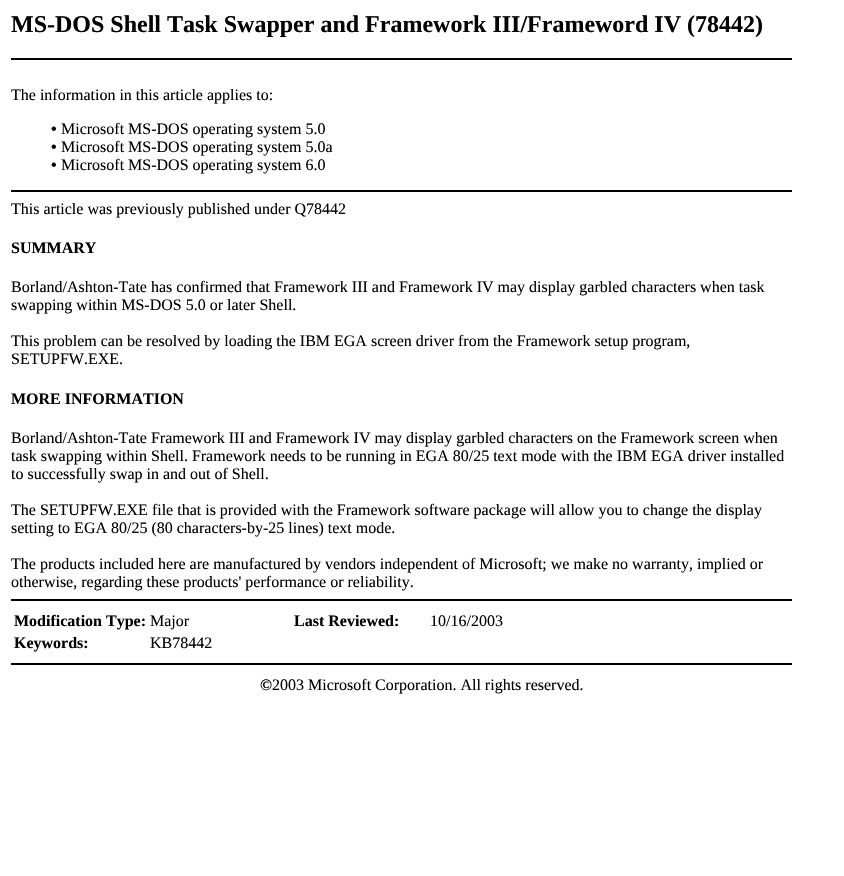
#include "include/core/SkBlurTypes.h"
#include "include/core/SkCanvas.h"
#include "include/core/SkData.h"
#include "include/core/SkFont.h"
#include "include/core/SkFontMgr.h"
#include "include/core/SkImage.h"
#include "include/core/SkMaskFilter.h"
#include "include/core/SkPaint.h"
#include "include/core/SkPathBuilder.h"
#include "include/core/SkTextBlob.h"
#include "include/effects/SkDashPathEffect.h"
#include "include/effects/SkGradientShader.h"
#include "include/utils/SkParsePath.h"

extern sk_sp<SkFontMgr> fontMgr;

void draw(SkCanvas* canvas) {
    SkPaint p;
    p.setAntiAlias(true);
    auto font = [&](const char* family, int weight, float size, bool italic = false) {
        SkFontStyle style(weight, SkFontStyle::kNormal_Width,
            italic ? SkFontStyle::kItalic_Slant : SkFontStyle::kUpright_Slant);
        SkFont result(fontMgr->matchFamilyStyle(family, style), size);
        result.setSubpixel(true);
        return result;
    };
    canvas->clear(0xFFFFFFFF);
    auto font1 = font("Liberation Serif", 700, 24);
    p.setColor(0xFF000000);
    canvas->drawString("MS-DOS Shell Task Swapper and Framework III/Frameword IV (78442)", 11, 32, font1, p);
    canvas->drawRect(SkRect::MakeLTRB(11, 58, 792, 60), p);
    auto font2 = font("Liberation Serif", 400, 16);
    canvas->drawString("The information in this article applies to:", 11, 100, font2, p);
    auto font3 = font("Liberation Serif", 700, 16);
    canvas->drawString("•", 51, 134, font3, p);
    canvas->drawString("Microsoft MS-DOS operating system 5.0", 61, 134, font2, p);
    canvas->drawString("•", 51, 152, font3, p);
    canvas->drawString("Microsoft MS-DOS operating system 5.0a", 61, 152, font2, p);
    canvas->drawString("•", 51, 170, font3, p);
    canvas->drawString("Microsoft MS-DOS operating system 6.0", 61, 170, font2, p);
    canvas->drawRect(SkRect::MakeLTRB(11, 190, 792, 192), p);
    canvas->drawString("This article was previously published under Q78442", 11, 214, font2, p);
    canvas->drawString("SUMMARY", 11, 253, font3, p);
    {
        const struct { const char* s; float x, y; } items[] = {
            {"Borland/Ashton-Tate has confirmed that Framework III and Framework IV may display garbled characters when task", 11, 292},
            {"swapping within MS-DOS 5.0 or later Shell.", 11, 310},
            {"This problem can be resolved by loading the IBM EGA screen driver from the Framework setup program,", 11, 346},
            {"SETUPFW.EXE.", 11, 364},
        };
        for (auto [s, x, y] : items) {
            canvas->drawString(s, x, y, font2, p);
        }
    }
    canvas->drawString("MORE INFORMATION", 11, 404, font3, p);
    {
        const struct { const char* s; float x, y; } items[] = {
            {"Borland/Ashton-Tate Framework III and Framework IV may display garbled characters on the Framework screen when", 11, 443},
            {"task swapping within Shell. Framework needs to be running in EGA 80/25 text mode with the IBM EGA driver installed", 11, 461},
            {"to successfully swap in and out of Shell.", 11, 479},
            {"The SETUPFW.EXE file that is provided with the Framework software package will allow you to change the display", 11, 515},
            {"setting to EGA 80/25 (80 characters-by-25 lines) text mode.", 11, 533},
            {"The products included here are manufactured by vendors independent of Microsoft; we make no warranty, implied or", 11, 569},
            {"otherwise, regarding these products' performance or reliability.", 11, 587},
        };
        for (auto [s, x, y] : items) {
            canvas->drawString(s, x, y, font2, p);
        }
    }
    canvas->drawRect(SkRect::MakeLTRB(11, 599, 792, 601), p);
    canvas->drawString("Modification Type:", 14, 626, font3, p);
    canvas->drawString("Major", 150, 626, font2, p);
    canvas->drawString("Last Reviewed:", 294, 626, font3, p);
    canvas->drawString("10/16/2003", 430, 626, font2, p);
    canvas->drawString("Keywords:", 14, 648, font3, p);
    canvas->drawString("KB78442", 150, 648, font2, p);
    canvas->drawRect(SkRect::MakeLTRB(11, 663, 792, 665), p);
    canvas->drawString("©", 260, 690, font3, p);
    canvas->drawString("2003 Microsoft Corporation. All rights reserved.", 272, 690, font2, p);
}
